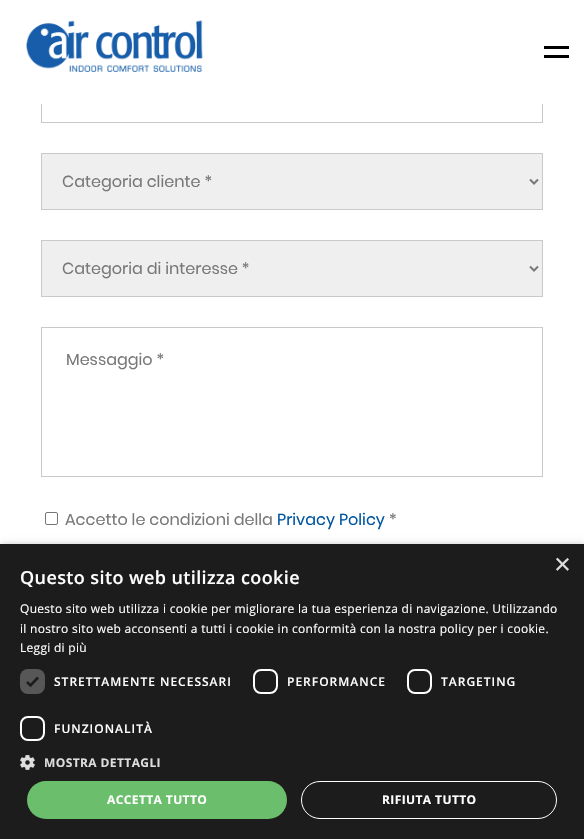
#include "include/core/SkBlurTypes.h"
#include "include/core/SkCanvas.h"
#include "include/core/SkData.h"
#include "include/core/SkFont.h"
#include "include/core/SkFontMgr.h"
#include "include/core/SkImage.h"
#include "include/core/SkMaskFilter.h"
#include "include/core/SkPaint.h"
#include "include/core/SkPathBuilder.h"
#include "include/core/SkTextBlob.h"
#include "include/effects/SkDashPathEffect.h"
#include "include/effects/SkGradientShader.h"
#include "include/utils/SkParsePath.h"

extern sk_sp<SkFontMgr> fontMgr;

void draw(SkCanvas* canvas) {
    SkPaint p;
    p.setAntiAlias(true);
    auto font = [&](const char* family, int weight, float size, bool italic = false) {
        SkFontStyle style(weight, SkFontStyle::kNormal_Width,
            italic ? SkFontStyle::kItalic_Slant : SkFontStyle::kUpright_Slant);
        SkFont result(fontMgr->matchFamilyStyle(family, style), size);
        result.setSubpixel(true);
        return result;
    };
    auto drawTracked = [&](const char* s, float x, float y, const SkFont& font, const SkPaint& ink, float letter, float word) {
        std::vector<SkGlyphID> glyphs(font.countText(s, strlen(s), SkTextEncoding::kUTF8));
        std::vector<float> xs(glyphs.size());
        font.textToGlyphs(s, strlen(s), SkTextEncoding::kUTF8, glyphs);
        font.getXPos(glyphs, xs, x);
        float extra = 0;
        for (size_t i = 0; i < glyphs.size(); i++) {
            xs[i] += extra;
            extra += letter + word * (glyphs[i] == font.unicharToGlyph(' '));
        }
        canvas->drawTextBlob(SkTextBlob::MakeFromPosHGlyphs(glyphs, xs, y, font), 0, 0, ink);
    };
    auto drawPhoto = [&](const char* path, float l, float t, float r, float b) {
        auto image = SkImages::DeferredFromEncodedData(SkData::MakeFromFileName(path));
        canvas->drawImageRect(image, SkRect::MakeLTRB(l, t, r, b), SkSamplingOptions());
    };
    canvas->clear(0xFFFFFFFF);
    p.setStyle(SkPaint::kStroke_Style);
    p.setStrokeWidth(1);
    p.setColor(0xFFC9C9C9);
    canvas->drawRect(SkRect::MakeLTRB(41.5f, 66.5f, 542.5f, 122.5f), p);
    p.setStyle(SkPaint::kFill_Style);
    p.setColor(0xFFFFFFFF);
    canvas->drawRect(SkRect::MakeLTRB(41, 66, 543, 104), p);
    drawPhoto("media/1.png", 26, 20, 203, 72);
    p.setColor(0xFF000000);
    canvas->drawRect(SkRect::MakeLTRB(544, 46, 569, 49), p);
    canvas->drawRect(SkRect::MakeLTRB(544, 55, 569, 58), p);
    p.setColor(0xFFEFEFEF);
    canvas->drawRect(SkRect::MakeLTRB(41.5f, 153.5f, 542.5f, 209.5f), p);
    p.setStyle(SkPaint::kStroke_Style);
    p.setColor(0xFFC9C9C9);
    canvas->drawRect(SkRect::MakeLTRB(41.5f, 153.5f, 542.5f, 209.5f), p);
    p.setStrokeWidth(2);
    p.setColor(0xFF787878);
    canvas->drawPath(SkPathBuilder().moveTo(530, 179.5f).lineTo(534, 183.5f).lineTo(538, 179.5f).detach(), p);
    auto font1 = font("Poppins", 400, 16);
    p.setStyle(SkPaint::kFill_Style);
    canvas->drawString("Categoria cliente *", 62, 187, font1, p);
    p.setColor(0xFFEFEFEF);
    canvas->drawRect(SkRect::MakeLTRB(41.5f, 240.5f, 542.5f, 296.5f), p);
    p.setStyle(SkPaint::kStroke_Style);
    p.setStrokeWidth(1);
    p.setColor(0xFFC9C9C9);
    canvas->drawRect(SkRect::MakeLTRB(41.5f, 240.5f, 542.5f, 296.5f), p);
    p.setStrokeWidth(2);
    p.setColor(0xFF787878);
    canvas->drawPath(SkPathBuilder().moveTo(530, 266.5f).lineTo(534, 270.5f).lineTo(538, 266.5f).detach(), p);
    p.setStyle(SkPaint::kFill_Style);
    canvas->drawString("Categoria di interesse *", 62, 274, font1, p);
    p.setStyle(SkPaint::kStroke_Style);
    p.setStrokeWidth(1);
    p.setColor(0xFFC9C9C9);
    canvas->drawRect(SkRect::MakeLTRB(41.5f, 327.5f, 542.5f, 476.5f), p);
    p.setStyle(SkPaint::kFill_Style);
    p.setColor(0xFF787878);
    canvas->drawString("Messaggio *", 66, 365, font1, p);
    p.setStyle(SkPaint::kStroke_Style);
    p.setColor(0xFF767676);
    canvas->drawRoundRect(SkRect::MakeLTRB(45.5f, 512.5f, 57.5f, 524.5f), 1.5f, 1.5f, p);
    p.setStyle(SkPaint::kFill_Style);
    p.setColor(0xFF787878);
    canvas->drawString("Accetto le condizioni della", 65, 525, font1, p);
    p.setColor(0xFF0055A0);
    canvas->drawString("Privacy Policy", 277, 525, font1, p);
    p.setColor(0xFF787878);
    canvas->drawString("*", 389, 525, font1, p);
    p.setColor(0x59000000);
    p.setMaskFilter(SkMaskFilter::MakeBlur(kNormal_SkBlurStyle, 4));
    canvas->drawRect(SkRect::MakeLTRB(1, 546, 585, 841), p);
    p.setMaskFilter(nullptr);
    p.setColor(0xFF1C1C1C);
    canvas->drawRect(SkRect::MakeLTRB(0, 544, 584, 839), p);
    auto font2 = font("Liberation Sans", 400, 29);
    p.setColor(0xFFDDDDDD);
    canvas->drawString("×", 554, 574, font2, p);
    auto font3 = font("Open Sans", 600, 18);
    p.setColor(0xFFFFFFFF);
    drawTracked("Questo sito web utilizza cookie", 20, 584, font3, p, 0.4f, 0);
    auto font4 = font("Open Sans", 400, 12);
    {
        const struct { const char* s; float x, y; } items[] = {
            {"Questo sito web utilizza i cookie per migliorare la tua esperienza di navigazione. Utilizzando", 20, 613},
            {"il nostro sito web acconsenti a tutti i cookie in conformità con la nostra policy per i cookie.", 20, 633},
            {"Leggi di più", 20, 652},
        };
        for (auto [s, x, y] : items) {
            drawTracked(s, x, y, font4, p, 0.3f, 0);
        }
    }
    p.setColor(0xFF575757);
    canvas->drawRoundRect(SkRect::MakeLTRB(20, 669, 45, 694), 8, 8, p);
    p.setStyle(SkPaint::kStroke_Style);
    p.setStrokeWidth(2.6f);
    p.setColor(0xFF1C1C1C);
    canvas->drawPath(SkPathBuilder().moveTo(27, 682).lineTo(30.5f, 685.5f).lineTo(38, 677.5f).detach(), p);
    auto font5 = font("Open Sans", 600, 12);
    p.setStyle(SkPaint::kFill_Style);
    p.setColor(0xFFFFFFFF);
    drawTracked("STRETTAMENTE NECESSARI", 54, 686, font5, p, 1, 0);
    p.setStyle(SkPaint::kStroke_Style);
    p.setStrokeWidth(2);
    canvas->drawRoundRect(SkRect::MakeLTRB(254, 670, 277, 693), 7, 7, p);
    p.setStyle(SkPaint::kFill_Style);
    drawTracked("PERFORMANCE", 287, 686, font5, p, 1, 0);
    p.setStyle(SkPaint::kStroke_Style);
    canvas->drawRoundRect(SkRect::MakeLTRB(408, 670, 431, 693), 7, 7, p);
    p.setStyle(SkPaint::kFill_Style);
    drawTracked("TARGETING", 441, 686, font5, p, 1, 0);
    p.setStyle(SkPaint::kStroke_Style);
    canvas->drawRoundRect(SkRect::MakeLTRB(21, 717, 44, 740), 7, 7, p);
    p.setStyle(SkPaint::kFill_Style);
    drawTracked("FUNZIONALITÀ", 54, 733, font5, p, 1, 0);
    drawPhoto("media/2.png", 20, 755, 35, 770);
    auto font6 = font("Open Sans", 700, 12);
    p.setColor(0xFFDDDDDD);
    drawTracked("MOSTRA DETTAGLI", 44, 767, font6, p, 0.4f, 0);
    p.setColor(0xFF6BBE6B);
    canvas->drawRoundRect(SkRect::MakeLTRB(27, 781, 287, 819), 19, 19, p);
    p.setColor(0xFFFFFFFF);
    drawTracked("ACCETTA TUTTO", 107, 804, font6, p, 0.4f, 0);
    p.setStyle(SkPaint::kStroke_Style);
    p.setStrokeWidth(1);
    canvas->drawRoundRect(SkRect::MakeLTRB(301.5f, 781.5f, 556.5f, 818.5f), 18.5f, 18.5f, p);
    p.setStyle(SkPaint::kFill_Style);
    drawTracked("RIFIUTA TUTTO", 382, 804, font6, p, 0.4f, 0);
}
